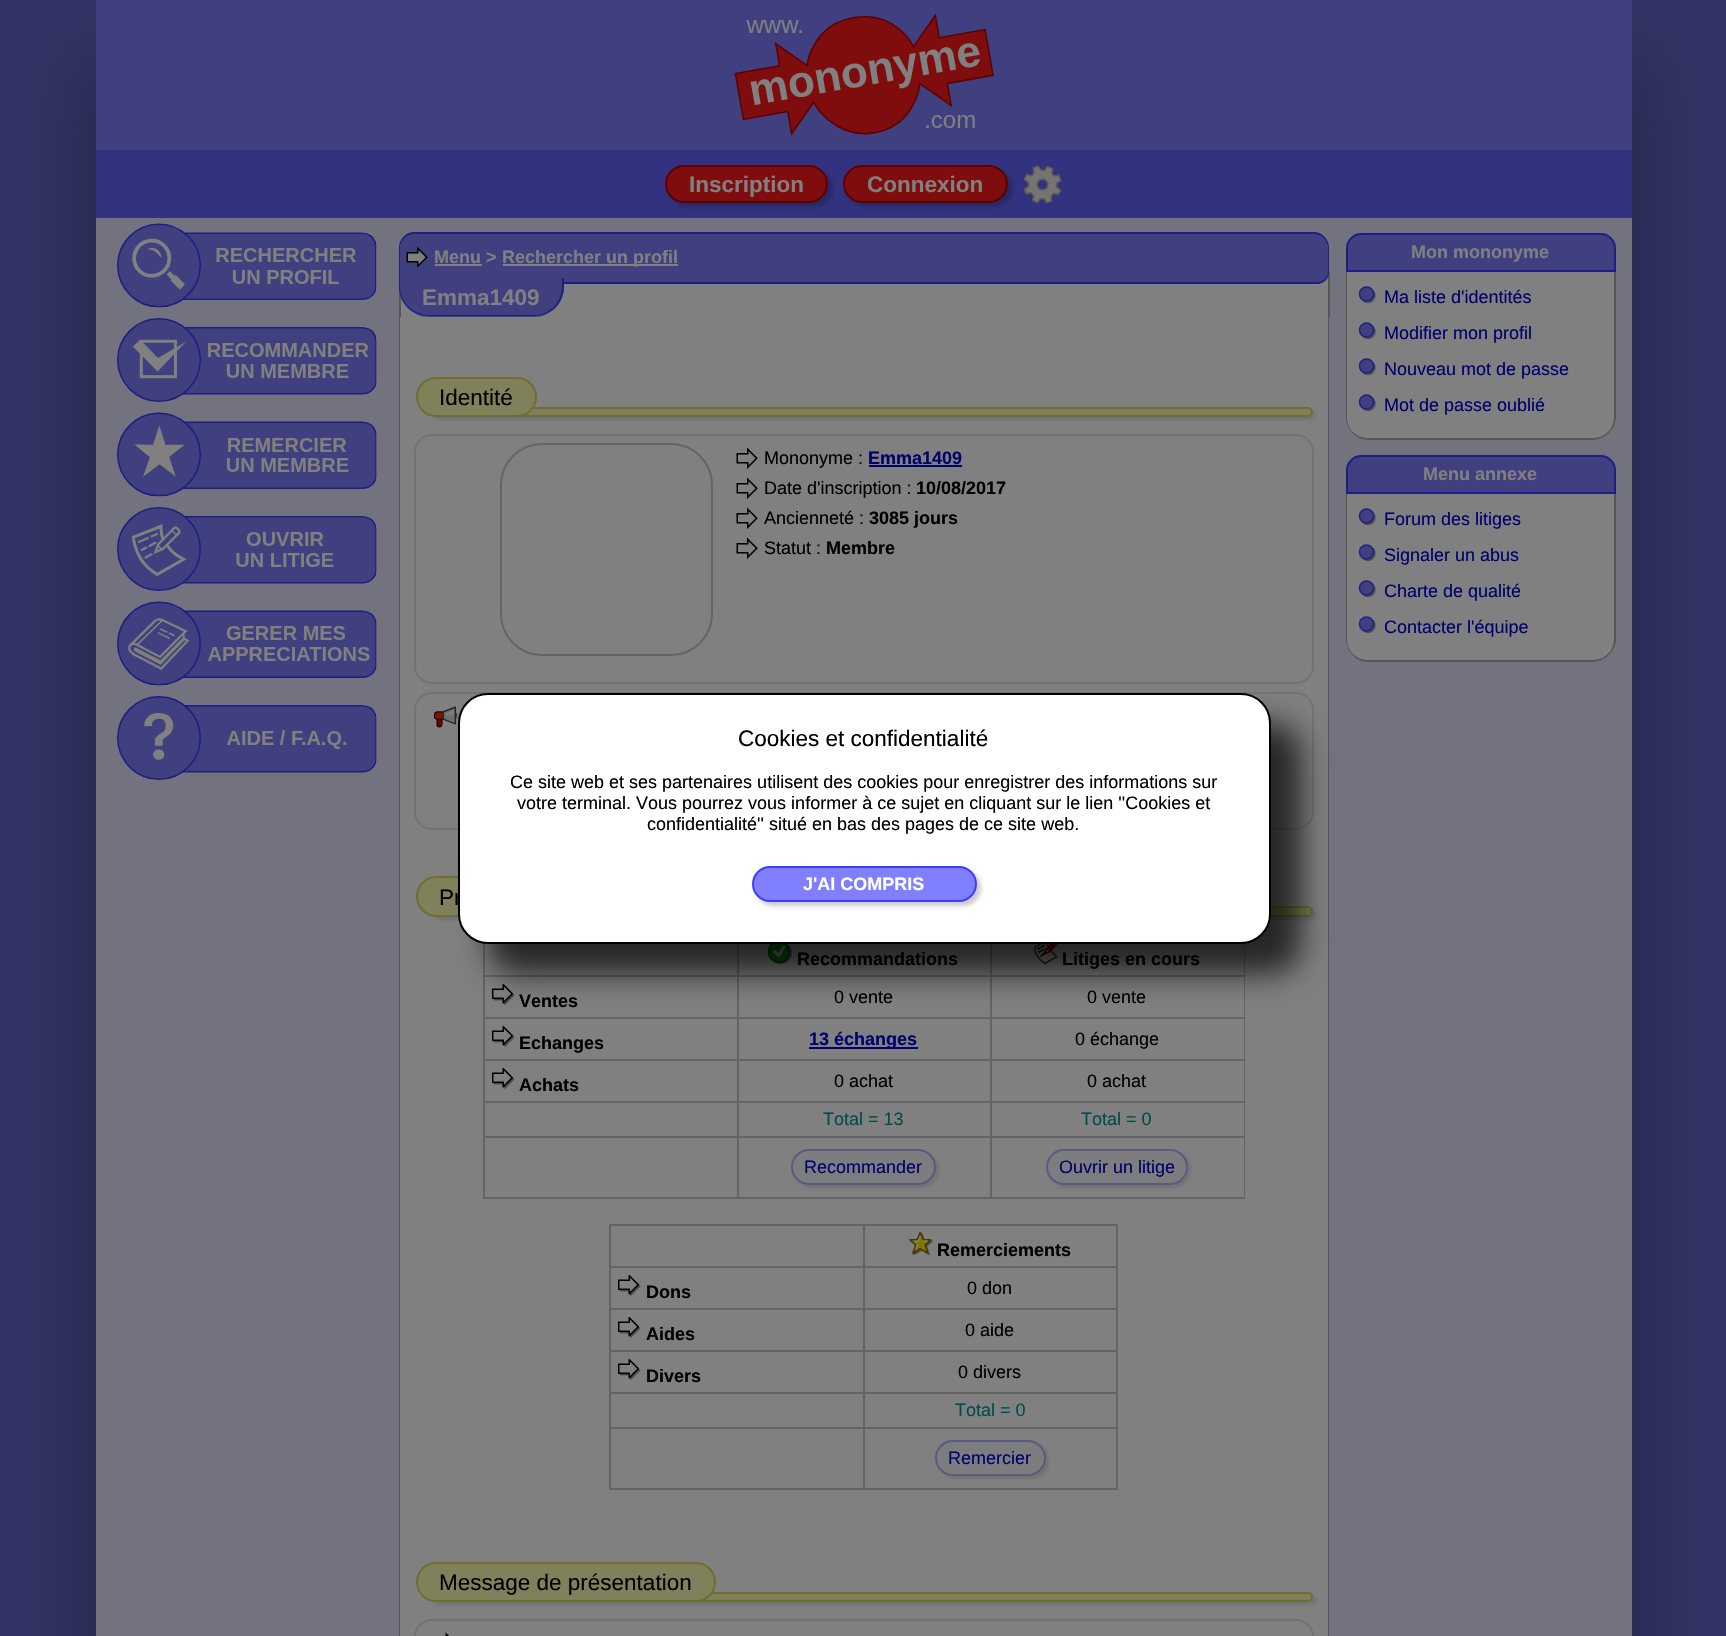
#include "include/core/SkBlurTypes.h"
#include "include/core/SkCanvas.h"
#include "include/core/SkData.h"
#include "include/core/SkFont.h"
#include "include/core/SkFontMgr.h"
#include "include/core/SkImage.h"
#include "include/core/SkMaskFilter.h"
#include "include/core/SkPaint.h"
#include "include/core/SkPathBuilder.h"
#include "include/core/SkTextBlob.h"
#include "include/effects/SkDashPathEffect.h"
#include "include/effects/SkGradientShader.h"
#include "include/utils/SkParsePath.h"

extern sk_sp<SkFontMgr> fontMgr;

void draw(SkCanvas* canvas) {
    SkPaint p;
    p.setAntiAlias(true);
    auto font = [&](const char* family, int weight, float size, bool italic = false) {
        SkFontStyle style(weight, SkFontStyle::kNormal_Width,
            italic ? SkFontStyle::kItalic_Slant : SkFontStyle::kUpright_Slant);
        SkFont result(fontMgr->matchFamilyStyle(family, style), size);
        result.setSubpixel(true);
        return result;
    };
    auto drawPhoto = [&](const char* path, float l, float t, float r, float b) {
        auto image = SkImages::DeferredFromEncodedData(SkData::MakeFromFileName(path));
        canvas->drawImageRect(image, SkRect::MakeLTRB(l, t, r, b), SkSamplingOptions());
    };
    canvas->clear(0xFF323264);
    p.setColor(0x4D000000);
    p.setMaskFilter(SkMaskFilter::MakeBlur(kNormal_SkBlurStyle, 30));
    canvas->drawRect(SkRect::MakeLTRB(96, 75, 1632, 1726), p);
    p.setMaskFilter(nullptr);
    p.setColor(0xFF404080);
    canvas->drawRect(SkRect::MakeLTRB(96, 0, 1632, 150), p);
    drawPhoto("media/1.png", 734, 13, 994, 136);
    p.setColor(0xFF323280);
    canvas->drawRect(SkRect::MakeLTRB(96, 150, 1632, 218), p);
    p.setColor(0x33000000);
    p.setMaskFilter(SkMaskFilter::MakeBlur(kNormal_SkBlurStyle, 2));
    canvas->drawRoundRect(SkRect::MakeLTRB(669, 170, 833, 207), 18.5f, 18.5f, p);
    p.setMaskFilter(nullptr);
    p.setColor(0xFF800D0D);
    canvas->drawRoundRect(SkRect::MakeLTRB(666, 166, 827, 202), 18, 18, p);
    p.setStyle(SkPaint::kStroke_Style);
    p.setStrokeWidth(2);
    p.setColor(0xFF5C0000);
    canvas->drawRoundRect(SkRect::MakeLTRB(666, 166, 827, 202), 18, 18, p);
    auto font1 = font("Liberation Sans", 700, 22.5f);
    p.setStyle(SkPaint::kFill_Style);
    p.setColor(0xFF808080);
    canvas->drawString("Inscription", 689, 192, font1, p);
    p.setColor(0x33000000);
    p.setMaskFilter(SkMaskFilter::MakeBlur(kNormal_SkBlurStyle, 2));
    canvas->drawRoundRect(SkRect::MakeLTRB(848, 170, 1013, 207), 18.5f, 18.5f, p);
    p.setMaskFilter(nullptr);
    p.setColor(0xFF800D0D);
    canvas->drawRoundRect(SkRect::MakeLTRB(844, 166, 1007, 202), 18, 18, p);
    p.setStyle(SkPaint::kStroke_Style);
    p.setColor(0xFF5C0000);
    canvas->drawRoundRect(SkRect::MakeLTRB(844, 166, 1007, 202), 18, 18, p);
    p.setStyle(SkPaint::kFill_Style);
    p.setColor(0xFF808080);
    canvas->drawString("Connexion", 867, 192, font1, p);
    drawPhoto("media/2.png", 1023, 165, 1062, 204);
    p.setColor(0xFF737380);
    canvas->drawRect(SkRect::MakeLTRB(96, 218, 1632, 1636), p);
    drawPhoto("media/3.png", 117, 223, 377, 308);
    drawPhoto("media/4.png", 117, 318, 377, 402);
    drawPhoto("media/5.png", 117, 412, 377, 497);
    drawPhoto("media/6.png", 117, 507, 377, 591);
    drawPhoto("media/7.png", 117, 601, 377, 686);
    drawPhoto("media/8.png", 117, 696, 377, 780);
    p.setColor(0xFF404080);
    canvas->drawPath(SkPathBuilder().moveTo(414, 233).lineTo(1314, 233).cubicTo(1322.5f, 233, 1329, 239.5f, 1329, 248).lineTo(1329, 272).lineTo(399, 272).lineTo(399, 248).cubicTo(399, 239.5f, 405.5f, 233, 414, 233).close().detach(), p);
    p.setColor(0xFF1F1F80);
    canvas->drawPath(SkPathBuilder(SkPathFillType::kEvenOdd).moveTo(414, 232).lineTo(1314, 232).cubicTo(1322, 232, 1329, 239, 1329, 248).lineTo(1329, 272).lineTo(399, 272).lineTo(399, 248).cubicTo(399, 239, 406, 232, 414, 232).close().moveTo(414, 234).lineTo(1314, 234).cubicTo(1321, 234, 1328, 240, 1328, 248).lineTo(1328, 272).lineTo(400, 272).lineTo(400, 248).cubicTo(400, 240, 407, 234, 414, 234).close().detach(), p);
    drawPhoto("media/9.png", 406, 246, 428, 267);
    auto font2 = font("Liberation Sans", 700, 18);
    p.setColor(0xFF808080);
    canvas->drawString("Menu >", 434, 263, font2, p);
    canvas->drawRect(SkRect::MakeLTRB(435, 264, 482, 266), p);
    canvas->drawRect(SkRect::MakeLTRB(503, 264, 678, 266), p);
    canvas->drawString("Rechercher un profil", 502, 263, font2, p);
    canvas->drawRect(SkRect::MakeLTRB(400, 317, 1328, 1636), p);
    p.setColor(0xFF555555);
    canvas->drawPath(SkPathBuilder(SkPathFillType::kEvenOdd).moveTo(399, 316).lineTo(1329, 316).lineTo(1329, 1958).cubicTo(1329, 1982, 1309, 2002, 1284, 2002).lineTo(444, 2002).cubicTo(419, 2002, 399, 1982, 399, 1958).close().moveTo(400, 316).lineTo(1328, 316).lineTo(1328, 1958).cubicTo(1328, 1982, 1308, 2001, 1284, 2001).lineTo(444, 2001).cubicTo(420, 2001, 400, 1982, 400, 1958).close().detach(), p);
    {
        const struct { float l, t, r, b; SkColor color; } items[] = {
            {401, 276, 1328, 317, 0xFF808080},
            {1328, 272, 1330, 317, 0xFF555555},
            {399, 287, 401, 317, 0xFF555555},
        };
        for (auto [l, t, r, b, color] : items) {
            p.setColor(color);
            canvas->drawRect(SkRect::MakeLTRB(l, t, r, b), p);
        }
    }
    p.setColor(0xFF404080);
    canvas->drawPath(SkPathBuilder().moveTo(399, 272).lineTo(1329, 272).cubicTo(1329, 278.5f, 1323.5f, 284, 1317, 284).lineTo(399, 284).close().detach(), p);
    p.setColor(0xFF1F1F80);
    canvas->drawPath(SkPathBuilder(SkPathFillType::kEvenOdd).moveTo(399, 272).lineTo(1329, 272).cubicTo(1329, 278, 1324, 284, 1317, 284).lineTo(399, 284).close().moveTo(400, 272).lineTo(1328, 272).cubicTo(1328, 277, 1323, 282, 1317, 282).lineTo(400, 282).close().detach(), p);
    p.setColor(0xFF404080);
    canvas->drawPath(SkPathBuilder().moveTo(399, 278).lineTo(564, 278).lineTo(564, 287).cubicTo(564, 303.5f, 550.5f, 317, 534, 317).lineTo(429, 317).cubicTo(412.5f, 317, 399, 303.5f, 399, 287).close().detach(), p);
    p.setColor(0xFF1F1F80);
    canvas->drawPath(SkPathBuilder(SkPathFillType::kEvenOdd).moveTo(399, 278).lineTo(564, 278).lineTo(564, 286).cubicTo(564, 303, 551, 316, 534, 316).lineTo(429, 316).cubicTo(412, 316, 399, 303, 399, 286).close().moveTo(400, 278).lineTo(562, 278).lineTo(562, 286).cubicTo(562, 302, 550, 315, 534, 315).lineTo(429, 315).cubicTo(413, 315, 400, 302, 400, 286).close().detach(), p);
    p.setColor(0xFF808080);
    canvas->drawString("Emma1409", 422, 305, font1, p);
    p.setColor(0x1A000000);
    p.setMaskFilter(SkMaskFilter::MakeBlur(kNormal_SkBlurStyle, 1.5f));
    canvas->drawRoundRect(SkRect::MakeLTRB(434, 410, 1316, 420), 5, 5, p);
    p.setMaskFilter(nullptr);
    p.setColor(0xFF80805A);
    canvas->drawRoundRect(SkRect::MakeLTRB(432, 408, 1312, 416), 4, 4, p);
    p.setStyle(SkPaint::kStroke_Style);
    p.setColor(0xFF6E6E32);
    canvas->drawRoundRect(SkRect::MakeLTRB(432, 408, 1312, 416), 4, 4, p);
    p.setStyle(SkPaint::kFill_Style);
    p.setColor(0xFF80805A);
    canvas->drawRoundRect(SkRect::MakeLTRB(417, 378, 536, 416), 19, 19, p);
    p.setStyle(SkPaint::kStroke_Style);
    p.setColor(0xFF6E6E32);
    canvas->drawRoundRect(SkRect::MakeLTRB(417, 378, 536, 416), 19, 19, p);
    auto font3 = font("Liberation Sans", 400, 22.5f);
    p.setStyle(SkPaint::kFill_Style);
    p.setColor(0xFF000000);
    canvas->drawString("Identité", 439, 405, font3, p);
    p.setStyle(SkPaint::kStroke_Style);
    p.setColor(0xFF737373);
    canvas->drawRoundRect(SkRect::MakeLTRB(415, 435, 1313, 683), 17, 17, p);
    p.setColor(0xFF646464);
    canvas->drawRoundRect(SkRect::MakeLTRB(501, 444, 712, 655), 41, 41, p);
    drawPhoto("media/10.png", 736, 447, 758, 469);
    auto font4 = font("Liberation Sans", 400, 18);
    p.setStyle(SkPaint::kFill_Style);
    p.setColor(0xFF000000);
    canvas->drawString("Mononyme :", 764, 464, font4, p);
    p.setColor(0xFF00006E);
    canvas->drawString("Emma1409", 868, 464, font2, p);
    canvas->drawRect(SkRect::MakeLTRB(869, 465, 962, 467), p);
    drawPhoto("media/10.png", 736, 477, 758, 499);
    p.setColor(0xFF000000);
    canvas->drawString("Date d'inscription :", 764, 494, font4, p);
    canvas->drawString("10/08/2017", 916, 494, font2, p);
    drawPhoto("media/10.png", 736, 507, 758, 529);
    canvas->drawString("Ancienneté :", 764, 524, font4, p);
    canvas->drawString("3085 jours", 869, 524, font2, p);
    drawPhoto("media/10.png", 736, 537, 758, 559);
    canvas->drawString("Statut :", 764, 554, font4, p);
    canvas->drawString("Membre", 826, 554, font2, p);
    p.setStyle(SkPaint::kStroke_Style);
    p.setColor(0xFF737373);
    canvas->drawRoundRect(SkRect::MakeLTRB(415, 693, 1313, 829), 17, 17, p);
    drawPhoto("media/11.png", 434, 706, 458, 728);
    p.setStyle(SkPaint::kFill_Style);
    p.setColor(0x1A000000);
    p.setMaskFilter(SkMaskFilter::MakeBlur(kNormal_SkBlurStyle, 1.5f));
    canvas->drawRoundRect(SkRect::MakeLTRB(434, 909, 1316, 920), 5.5f, 5.5f, p);
    p.setMaskFilter(nullptr);
    p.setColor(0xFF80805A);
    canvas->drawRoundRect(SkRect::MakeLTRB(432, 907, 1312, 916), 4.5f, 4.5f, p);
    p.setStyle(SkPaint::kStroke_Style);
    p.setColor(0xFF6E6E32);
    canvas->drawRoundRect(SkRect::MakeLTRB(432, 907, 1312, 916), 4.5f, 4.5f, p);
    p.setStyle(SkPaint::kFill_Style);
    p.setColor(0xFF80805A);
    canvas->drawRoundRect(SkRect::MakeLTRB(417, 877, 514, 916), 19.5f, 19.5f, p);
    p.setStyle(SkPaint::kStroke_Style);
    p.setColor(0xFF6E6E32);
    canvas->drawRoundRect(SkRect::MakeLTRB(417, 877, 514, 916), 19.5f, 19.5f, p);
    p.setStyle(SkPaint::kFill_Style);
    p.setColor(0xFF000000);
    canvas->drawString("Pr", 439, 905, font3, p);
    {
        const struct { float l, t, r, b; SkColor color; } items[] = {
            {990, 975, 1245, 977, 0xFF646464},
            {990, 1017, 1245, 1019, 0xFF646464},
            {990, 1059, 1245, 1061, 0xFF646464},
            {990, 1101, 1245, 1103, 0xFF646464},
            {990, 1136, 1245, 1138, 0xFF646464},
            {1244, 1136, 1245, 1199, 0xFF646464},
            {990, 1197, 1245, 1199, 0xFF646464},
            {990, 1136, 992, 1199, 0xFF646464},
            {737, 1136, 992, 1138, 0xFF646464},
            {990, 1101, 992, 1137, 0xFF646464},
            {737, 1101, 992, 1103, 0xFF646464},
            {990, 1059, 992, 1103, 0xFF646464},
            {737, 1059, 992, 1061, 0xFF646464},
            {990, 1017, 992, 1061, 0xFF646464},
            {737, 1017, 992, 1019, 0xFF646464},
            {990, 975, 992, 1019, 0xFF646464},
            {737, 975, 992, 977, 0xFF646464},
            {737, 1197, 992, 1199, 0xFF646464},
            {737, 1136, 739, 1199, 0xFF646464},
            {483, 1136, 738, 1138, 0xFF646464},
            {737, 1101, 739, 1137, 0xFF646464},
            {483, 1101, 738, 1103, 0xFF646464},
            {737, 1059, 739, 1103, 0xFF646464},
            {483, 1059, 738, 1061, 0xFF646464},
            {737, 1017, 739, 1061, 0xFF646464},
            {483, 1017, 738, 1019, 0xFF646464},
            {737, 975, 739, 1019, 0xFF646464},
            {483, 975, 738, 977, 0xFF646464},
            {737, 944, 739, 977, 0xFF646464},
        };
        for (auto [l, t, r, b, color] : items) {
            p.setColor(color);
            canvas->drawRect(SkRect::MakeLTRB(l, t, r, b), p);
        }
    }
    drawPhoto("media/12.png", 768, 944, 792, 965);
    p.setColor(0xFF000000);
    canvas->drawString("Recommandations", 797, 965, font2, p);
    p.setColor(0xFF646464);
    canvas->drawRect(SkRect::MakeLTRB(990, 944, 992, 977), p);
    drawPhoto("media/13.png", 1034, 944, 1058, 965);
    p.setColor(0xFF000000);
    canvas->drawString("Litiges en cours", 1062, 965, font2, p);
    {
        const struct { float l, t, r, b; SkColor color; } items[] = {
            {483, 1197, 738, 1199, 0xFF646464},
            {483, 1136, 485, 1199, 0xFF646464},
            {483, 1101, 485, 1137, 0xFF646464},
            {483, 1059, 485, 1103, 0xFF646464},
            {483, 1017, 485, 1061, 0xFF646464},
            {483, 943, 485, 1019, 0xFF646464},
        };
        for (auto [l, t, r, b, color] : items) {
            p.setColor(color);
            canvas->drawRect(SkRect::MakeLTRB(l, t, r, b), p);
        }
    }
    drawPhoto("media/14.png", 491, 984, 515, 1005);
    p.setColor(0xFF000000);
    canvas->drawString("Ventes", 519, 1007, font2, p);
    canvas->drawString("0 vente", 834, 1003, font4, p);
    {
        const struct { float l, t, r, b; SkColor color; } items[] = {
            {1244, 1101, 1245, 1137, 0xFF646464},
            {1244, 1059, 1245, 1103, 0xFF646464},
            {1244, 1017, 1245, 1061, 0xFF646464},
            {1244, 943, 1245, 1019, 0xFF646464},
        };
        for (auto [l, t, r, b, color] : items) {
            p.setColor(color);
            canvas->drawRect(SkRect::MakeLTRB(l, t, r, b), p);
        }
    }
    p.setColor(0xFF000000);
    canvas->drawString("0 vente", 1087, 1003, font4, p);
    drawPhoto("media/14.png", 491, 1026, 515, 1047);
    canvas->drawString("Echanges", 519, 1049, font2, p);
    p.setColor(0xFF00006E);
    canvas->drawRect(SkRect::MakeLTRB(809, 1047, 918, 1049), p);
    canvas->drawString("13 échanges", 809, 1045, font2, p);
    p.setColor(0xFF000000);
    canvas->drawString("0 échange", 1075, 1045, font4, p);
    drawPhoto("media/14.png", 491, 1068, 515, 1089);
    canvas->drawString("Achats", 519, 1091, font2, p);
    canvas->drawString("0 achat", 834, 1087, font4, p);
    canvas->drawString("0 achat", 1087, 1087, font4, p);
    p.setColor(0xFF004B4B);
    canvas->drawString("Total = 13", 823, 1125, font4, p);
    canvas->drawString("Total = 0", 1081, 1125, font4, p);
    p.setColor(0x1A000000);
    p.setMaskFilter(SkMaskFilter::MakeBlur(kNormal_SkBlurStyle, 1.5f));
    canvas->drawRoundRect(SkRect::MakeLTRB(794, 1152, 939, 1188), 18, 18, p);
    p.setMaskFilter(nullptr);
    p.setColor(0xFF7D7D80);
    canvas->drawRoundRect(SkRect::MakeLTRB(792, 1150, 935, 1184), 17, 17, p);
    p.setStyle(SkPaint::kStroke_Style);
    p.setColor(0xFF5A5A80);
    canvas->drawRoundRect(SkRect::MakeLTRB(792, 1150, 935, 1184), 17, 17, p);
    p.setStyle(SkPaint::kFill_Style);
    p.setColor(0xFF00006E);
    canvas->drawString("Recommander", 804, 1173, font4, p);
    p.setColor(0x1A000000);
    p.setMaskFilter(SkMaskFilter::MakeBlur(kNormal_SkBlurStyle, 1.5f));
    canvas->drawRoundRect(SkRect::MakeLTRB(1049, 1152, 1191, 1188), 18, 18, p);
    p.setMaskFilter(nullptr);
    p.setColor(0xFF7D7D80);
    canvas->drawRoundRect(SkRect::MakeLTRB(1047, 1150, 1187, 1184), 17, 17, p);
    p.setStyle(SkPaint::kStroke_Style);
    p.setColor(0xFF5A5A80);
    canvas->drawRoundRect(SkRect::MakeLTRB(1047, 1150, 1187, 1184), 17, 17, p);
    p.setStyle(SkPaint::kFill_Style);
    p.setColor(0xFF00006E);
    canvas->drawString("Ouvrir un litige", 1059, 1173, font4, p);
    {
        const struct { float l, t, r, b; SkColor color; } items[] = {
            {863, 1224, 1118, 1226, 0xFF646464},
            {863, 1266, 1118, 1268, 0xFF646464},
            {863, 1308, 1118, 1310, 0xFF646464},
            {863, 1350, 1118, 1352, 0xFF646464},
            {863, 1392, 1118, 1394, 0xFF646464},
            {863, 1427, 1118, 1429, 0xFF646464},
            {1116, 1427, 1118, 1490, 0xFF646464},
            {863, 1488, 1118, 1490, 0xFF646464},
            {863, 1427, 865, 1490, 0xFF646464},
            {609, 1427, 864, 1429, 0xFF646464},
            {863, 1392, 865, 1428, 0xFF646464},
            {609, 1392, 864, 1394, 0xFF646464},
            {863, 1350, 865, 1394, 0xFF646464},
            {609, 1350, 864, 1352, 0xFF646464},
            {863, 1308, 865, 1352, 0xFF646464},
            {609, 1308, 864, 1310, 0xFF646464},
            {863, 1266, 865, 1310, 0xFF646464},
            {609, 1266, 864, 1268, 0xFF646464},
            {863, 1224, 865, 1268, 0xFF646464},
            {609, 1224, 864, 1226, 0xFF646464},
            {609, 1488, 864, 1490, 0xFF646464},
            {609, 1427, 611, 1490, 0xFF646464},
            {609, 1392, 611, 1428, 0xFF646464},
            {609, 1350, 611, 1394, 0xFF646464},
            {609, 1308, 611, 1352, 0xFF646464},
            {609, 1266, 611, 1310, 0xFF646464},
            {609, 1224, 611, 1268, 0xFF646464},
            {1116, 1392, 1118, 1428, 0xFF646464},
            {1116, 1350, 1118, 1394, 0xFF646464},
            {1116, 1308, 1118, 1352, 0xFF646464},
            {1116, 1266, 1118, 1310, 0xFF646464},
            {1116, 1224, 1118, 1268, 0xFF646464},
        };
        for (auto [l, t, r, b, color] : items) {
            p.setColor(color);
            canvas->drawRect(SkRect::MakeLTRB(l, t, r, b), p);
        }
    }
    drawPhoto("media/15.png", 909, 1232, 933, 1256);
    p.setColor(0xFF000000);
    canvas->drawString("Remerciements", 937, 1256, font2, p);
    drawPhoto("media/14.png", 617, 1275, 641, 1296);
    canvas->drawString("Dons", 646, 1298, font2, p);
    canvas->drawString("0 don", 967, 1294, font4, p);
    drawPhoto("media/14.png", 617, 1317, 641, 1338);
    canvas->drawString("Aides", 646, 1340, font2, p);
    canvas->drawString("0 aide", 965, 1336, font4, p);
    drawPhoto("media/14.png", 617, 1359, 641, 1380);
    canvas->drawString("Divers", 646, 1382, font2, p);
    canvas->drawString("0 divers", 958, 1378, font4, p);
    p.setColor(0xFF004B4B);
    canvas->drawString("Total = 0", 955, 1416, font4, p);
    p.setColor(0x1A000000);
    p.setMaskFilter(SkMaskFilter::MakeBlur(kNormal_SkBlurStyle, 1.5f));
    canvas->drawRoundRect(SkRect::MakeLTRB(938, 1443, 1049, 1479), 18, 18, p);
    p.setMaskFilter(nullptr);
    p.setColor(0xFF7D7D80);
    canvas->drawRoundRect(SkRect::MakeLTRB(936, 1441, 1045, 1475), 17, 17, p);
    p.setStyle(SkPaint::kStroke_Style);
    p.setColor(0xFF5A5A80);
    canvas->drawRoundRect(SkRect::MakeLTRB(936, 1441, 1045, 1475), 17, 17, p);
    p.setStyle(SkPaint::kFill_Style);
    p.setColor(0xFF00006E);
    canvas->drawString("Remercier", 948, 1464, font4, p);
    p.setColor(0x1A000000);
    p.setMaskFilter(SkMaskFilter::MakeBlur(kNormal_SkBlurStyle, 1.5f));
    canvas->drawRoundRect(SkRect::MakeLTRB(434, 1595, 1316, 1605), 5, 5, p);
    p.setMaskFilter(nullptr);
    p.setColor(0xFF80805A);
    canvas->drawRoundRect(SkRect::MakeLTRB(432, 1593, 1312, 1601), 4, 4, p);
    p.setStyle(SkPaint::kStroke_Style);
    p.setColor(0xFF6E6E32);
    canvas->drawRoundRect(SkRect::MakeLTRB(432, 1593, 1312, 1601), 4, 4, p);
    p.setStyle(SkPaint::kFill_Style);
    p.setColor(0xFF80805A);
    canvas->drawRoundRect(SkRect::MakeLTRB(417, 1563, 715, 1601), 19, 19, p);
    p.setStyle(SkPaint::kStroke_Style);
    p.setColor(0xFF6E6E32);
    canvas->drawRoundRect(SkRect::MakeLTRB(417, 1563, 715, 1601), 19, 19, p);
    p.setStyle(SkPaint::kFill_Style);
    p.setColor(0xFF000000);
    canvas->drawString("Message de présentation", 439, 1590, font3, p);
    p.setStyle(SkPaint::kStroke_Style);
    p.setColor(0xFF737373);
    canvas->drawRoundRect(SkRect::MakeLTRB(415, 1620, 1313, 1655), 17, 17, p);
    drawPhoto("media/16.png", 445, 1632, 449, 1636);
    p.setStyle(SkPaint::kFill_Style);
    p.setColor(0xFF404080);
    canvas->drawPath(SkPathBuilder().moveTo(1361, 234).lineTo(1601, 234).cubicTo(1608.5f, 234, 1615, 240.5f, 1615, 248).lineTo(1615, 271).lineTo(1347, 271).lineTo(1347, 248).cubicTo(1347, 240.5f, 1353.5f, 234, 1361, 234).close().detach(), p);
    p.setStyle(SkPaint::kStroke_Style);
    p.setColor(0xFF1F1F80);
    canvas->drawPath(SkPathBuilder().moveTo(1361, 234).lineTo(1601, 234).cubicTo(1608.5f, 234, 1615, 240.5f, 1615, 248).lineTo(1615, 271).lineTo(1347, 271).lineTo(1347, 248).cubicTo(1347, 240.5f, 1353.5f, 234, 1361, 234).close().detach(), p);
    p.setStyle(SkPaint::kFill_Style);
    p.setColor(0xFF808080);
    canvas->drawString("Mon mononyme", 1411, 258, font2, p);
    canvas->drawPath(SkPathBuilder().moveTo(1346, 272).lineTo(1616, 272).lineTo(1616, 417).cubicTo(1616, 429.5f, 1605.5f, 440, 1593, 440).lineTo(1369, 440).cubicTo(1356.5f, 440, 1346, 429.5f, 1346, 417).close().detach(), p);
    p.setColor(0xFF555555);
    canvas->drawPath(SkPathBuilder(SkPathFillType::kEvenOdd).moveTo(1346, 272).lineTo(1616, 272).lineTo(1616, 417).cubicTo(1616, 429, 1605, 440, 1593, 440).lineTo(1368, 440).cubicTo(1356, 440, 1346, 429, 1346, 417).close().moveTo(1347, 272).lineTo(1614, 272).lineTo(1614, 417).cubicTo(1614, 429, 1605, 438, 1593, 438).lineTo(1368, 438).cubicTo(1356, 438, 1347, 429, 1347, 417).close().detach(), p);
    p.setColor(0xFF5A5A5A);
    canvas->drawCircle(1368, 295.5f, 7, p);
    p.setStyle(SkPaint::kStroke_Style);
    p.setStrokeWidth(1.5f);
    p.setColor(0x4D000000);
    canvas->drawCircle(1368, 295.5f, 7, p);
    p.setStyle(SkPaint::kFill_Style);
    p.setColor(0xFF404080);
    canvas->drawCircle(1366.5f, 294, 7, p);
    p.setStyle(SkPaint::kStroke_Style);
    p.setColor(0xFF1F1F80);
    canvas->drawCircle(1366.5f, 294, 7, p);
    p.setStyle(SkPaint::kFill_Style);
    p.setColor(0xFF00006E);
    canvas->drawString("Ma liste d'identités", 1384, 303, font4, p);
    p.setColor(0xFF5A5A5A);
    canvas->drawCircle(1368, 331.5f, 7, p);
    p.setStyle(SkPaint::kStroke_Style);
    p.setColor(0x4D000000);
    canvas->drawCircle(1368, 331.5f, 7, p);
    p.setStyle(SkPaint::kFill_Style);
    p.setColor(0xFF404080);
    canvas->drawCircle(1366.5f, 330, 7, p);
    p.setStyle(SkPaint::kStroke_Style);
    p.setColor(0xFF1F1F80);
    canvas->drawCircle(1366.5f, 330, 7, p);
    p.setStyle(SkPaint::kFill_Style);
    p.setColor(0xFF00006E);
    canvas->drawString("Modifier mon profil", 1384, 339, font4, p);
    p.setColor(0xFF5A5A5A);
    canvas->drawCircle(1368, 367.5f, 7, p);
    p.setStyle(SkPaint::kStroke_Style);
    p.setColor(0x4D000000);
    canvas->drawCircle(1368, 367.5f, 7, p);
    p.setStyle(SkPaint::kFill_Style);
    p.setColor(0xFF404080);
    canvas->drawCircle(1366.5f, 366, 7, p);
    p.setStyle(SkPaint::kStroke_Style);
    p.setColor(0xFF1F1F80);
    canvas->drawCircle(1366.5f, 366, 7, p);
    p.setStyle(SkPaint::kFill_Style);
    p.setColor(0xFF00006E);
    canvas->drawString("Nouveau mot de passe", 1384, 375, font4, p);
    p.setColor(0xFF5A5A5A);
    canvas->drawCircle(1368, 403.5f, 7, p);
    p.setStyle(SkPaint::kStroke_Style);
    p.setColor(0x4D000000);
    canvas->drawCircle(1368, 403.5f, 7, p);
    p.setStyle(SkPaint::kFill_Style);
    p.setColor(0xFF404080);
    canvas->drawCircle(1366.5f, 402, 7, p);
    p.setStyle(SkPaint::kStroke_Style);
    p.setColor(0xFF1F1F80);
    canvas->drawCircle(1366.5f, 402, 7, p);
    p.setStyle(SkPaint::kFill_Style);
    p.setColor(0xFF00006E);
    canvas->drawString("Mot de passe oublié", 1384, 411, font4, p);
    p.setColor(0xFF404080);
    canvas->drawPath(SkPathBuilder().moveTo(1361, 456).lineTo(1601, 456).cubicTo(1608.5f, 456, 1615, 462.5f, 1615, 470).lineTo(1615, 493).lineTo(1347, 493).lineTo(1347, 470).cubicTo(1347, 462.5f, 1353.5f, 456, 1361, 456).close().detach(), p);
    p.setStyle(SkPaint::kStroke_Style);
    p.setStrokeWidth(2);
    p.setColor(0xFF1F1F80);
    canvas->drawPath(SkPathBuilder().moveTo(1361, 456).lineTo(1601, 456).cubicTo(1608.5f, 456, 1615, 462.5f, 1615, 470).lineTo(1615, 493).lineTo(1347, 493).lineTo(1347, 470).cubicTo(1347, 462.5f, 1353.5f, 456, 1361, 456).close().detach(), p);
    p.setStyle(SkPaint::kFill_Style);
    p.setColor(0xFF808080);
    canvas->drawString("Menu annexe", 1423, 480, font2, p);
    canvas->drawPath(SkPathBuilder().moveTo(1346, 494).lineTo(1616, 494).lineTo(1616, 639).cubicTo(1616, 651.5f, 1605.5f, 662, 1593, 662).lineTo(1369, 662).cubicTo(1356.5f, 662, 1346, 651.5f, 1346, 639).close().detach(), p);
    p.setColor(0xFF555555);
    canvas->drawPath(SkPathBuilder(SkPathFillType::kEvenOdd).moveTo(1346, 494).lineTo(1616, 494).lineTo(1616, 639).cubicTo(1616, 651, 1605, 662, 1593, 662).lineTo(1368, 662).cubicTo(1356, 662, 1346, 651, 1346, 639).close().moveTo(1347, 494).lineTo(1614, 494).lineTo(1614, 639).cubicTo(1614, 651, 1605, 660, 1593, 660).lineTo(1368, 660).cubicTo(1356, 660, 1347, 651, 1347, 639).close().detach(), p);
    p.setColor(0xFF5A5A5A);
    canvas->drawCircle(1368, 517.5f, 7, p);
    p.setStyle(SkPaint::kStroke_Style);
    p.setStrokeWidth(1.5f);
    p.setColor(0x4D000000);
    canvas->drawCircle(1368, 517.5f, 7, p);
    p.setStyle(SkPaint::kFill_Style);
    p.setColor(0xFF404080);
    canvas->drawCircle(1366.5f, 516, 7, p);
    p.setStyle(SkPaint::kStroke_Style);
    p.setColor(0xFF1F1F80);
    canvas->drawCircle(1366.5f, 516, 7, p);
    p.setStyle(SkPaint::kFill_Style);
    p.setColor(0xFF00006E);
    canvas->drawString("Forum des litiges", 1384, 525, font4, p);
    p.setColor(0xFF5A5A5A);
    canvas->drawCircle(1368, 553.5f, 7, p);
    p.setStyle(SkPaint::kStroke_Style);
    p.setColor(0x4D000000);
    canvas->drawCircle(1368, 553.5f, 7, p);
    p.setStyle(SkPaint::kFill_Style);
    p.setColor(0xFF404080);
    canvas->drawCircle(1366.5f, 552, 7, p);
    p.setStyle(SkPaint::kStroke_Style);
    p.setColor(0xFF1F1F80);
    canvas->drawCircle(1366.5f, 552, 7, p);
    p.setStyle(SkPaint::kFill_Style);
    p.setColor(0xFF00006E);
    canvas->drawString("Signaler un abus", 1384, 561, font4, p);
    p.setColor(0xFF5A5A5A);
    canvas->drawCircle(1368, 589.5f, 7, p);
    p.setStyle(SkPaint::kStroke_Style);
    p.setColor(0x4D000000);
    canvas->drawCircle(1368, 589.5f, 7, p);
    p.setStyle(SkPaint::kFill_Style);
    p.setColor(0xFF404080);
    canvas->drawCircle(1366.5f, 588, 7, p);
    p.setStyle(SkPaint::kStroke_Style);
    p.setColor(0xFF1F1F80);
    canvas->drawCircle(1366.5f, 588, 7, p);
    p.setStyle(SkPaint::kFill_Style);
    p.setColor(0xFF00006E);
    canvas->drawString("Charte de qualité", 1384, 597, font4, p);
    p.setColor(0xFF5A5A5A);
    canvas->drawCircle(1368, 625.5f, 7, p);
    p.setStyle(SkPaint::kStroke_Style);
    p.setColor(0x4D000000);
    canvas->drawCircle(1368, 625.5f, 7, p);
    p.setStyle(SkPaint::kFill_Style);
    p.setColor(0xFF404080);
    canvas->drawCircle(1366.5f, 624, 7, p);
    p.setStyle(SkPaint::kStroke_Style);
    p.setColor(0xFF1F1F80);
    canvas->drawCircle(1366.5f, 624, 7, p);
    p.setStyle(SkPaint::kFill_Style);
    p.setColor(0xFF00006E);
    canvas->drawString("Contacter l'équipe", 1384, 633, font4, p);
    p.setColor(0xB3000000);
    p.setMaskFilter(SkMaskFilter::MakeBlur(kNormal_SkBlurStyle, 15));
    canvas->drawRoundRect(SkRect::MakeLTRB(488, 723, 1301, 974), 30, 30, p);
    p.setMaskFilter(nullptr);
    p.setColor(0xFFFFFFFF);
    canvas->drawRoundRect(SkRect::MakeLTRB(459, 694, 1270, 943), 29, 29, p);
    p.setStyle(SkPaint::kStroke_Style);
    p.setStrokeWidth(2);
    p.setColor(0xFF000000);
    canvas->drawRoundRect(SkRect::MakeLTRB(459, 694, 1270, 943), 29, 29, p);
    p.setStyle(SkPaint::kFill_Style);
    canvas->drawString("Cookies et confidentialité", 738, 746, font3, p);
    {
        const struct { const char* s; float x, y; } items[] = {
            {"Ce site web et ses partenaires utilisent des cookies pour enregistrer des informations sur", 510, 788},
            {"votre terminal. Vous pourrez vous informer à ce sujet en cliquant sur le lien ''Cookies et", 517, 809},
            {"confidentialité'' situé en bas des pages de ce site web.", 647, 830},
        };
        for (auto [s, x, y] : items) {
            canvas->drawString(s, x, y, font4, p);
        }
    }
    p.setColor(0x33000000);
    p.setMaskFilter(SkMaskFilter::MakeBlur(kNormal_SkBlurStyle, 2));
    canvas->drawRoundRect(SkRect::MakeLTRB(756, 870, 981, 906), 18, 18, p);
    p.setMaskFilter(nullptr);
    p.setColor(0xFF8080FF);
    canvas->drawRoundRect(SkRect::MakeLTRB(753, 867, 976, 901), 17, 17, p);
    p.setStyle(SkPaint::kStroke_Style);
    p.setColor(0xFF3D3DFF);
    canvas->drawRoundRect(SkRect::MakeLTRB(753, 867, 976, 901), 17, 17, p);
    p.setStyle(SkPaint::kFill_Style);
    p.setColor(0xFFFFFFFF);
    canvas->drawString("J'AI COMPRIS", 803, 890, font2, p);
}
